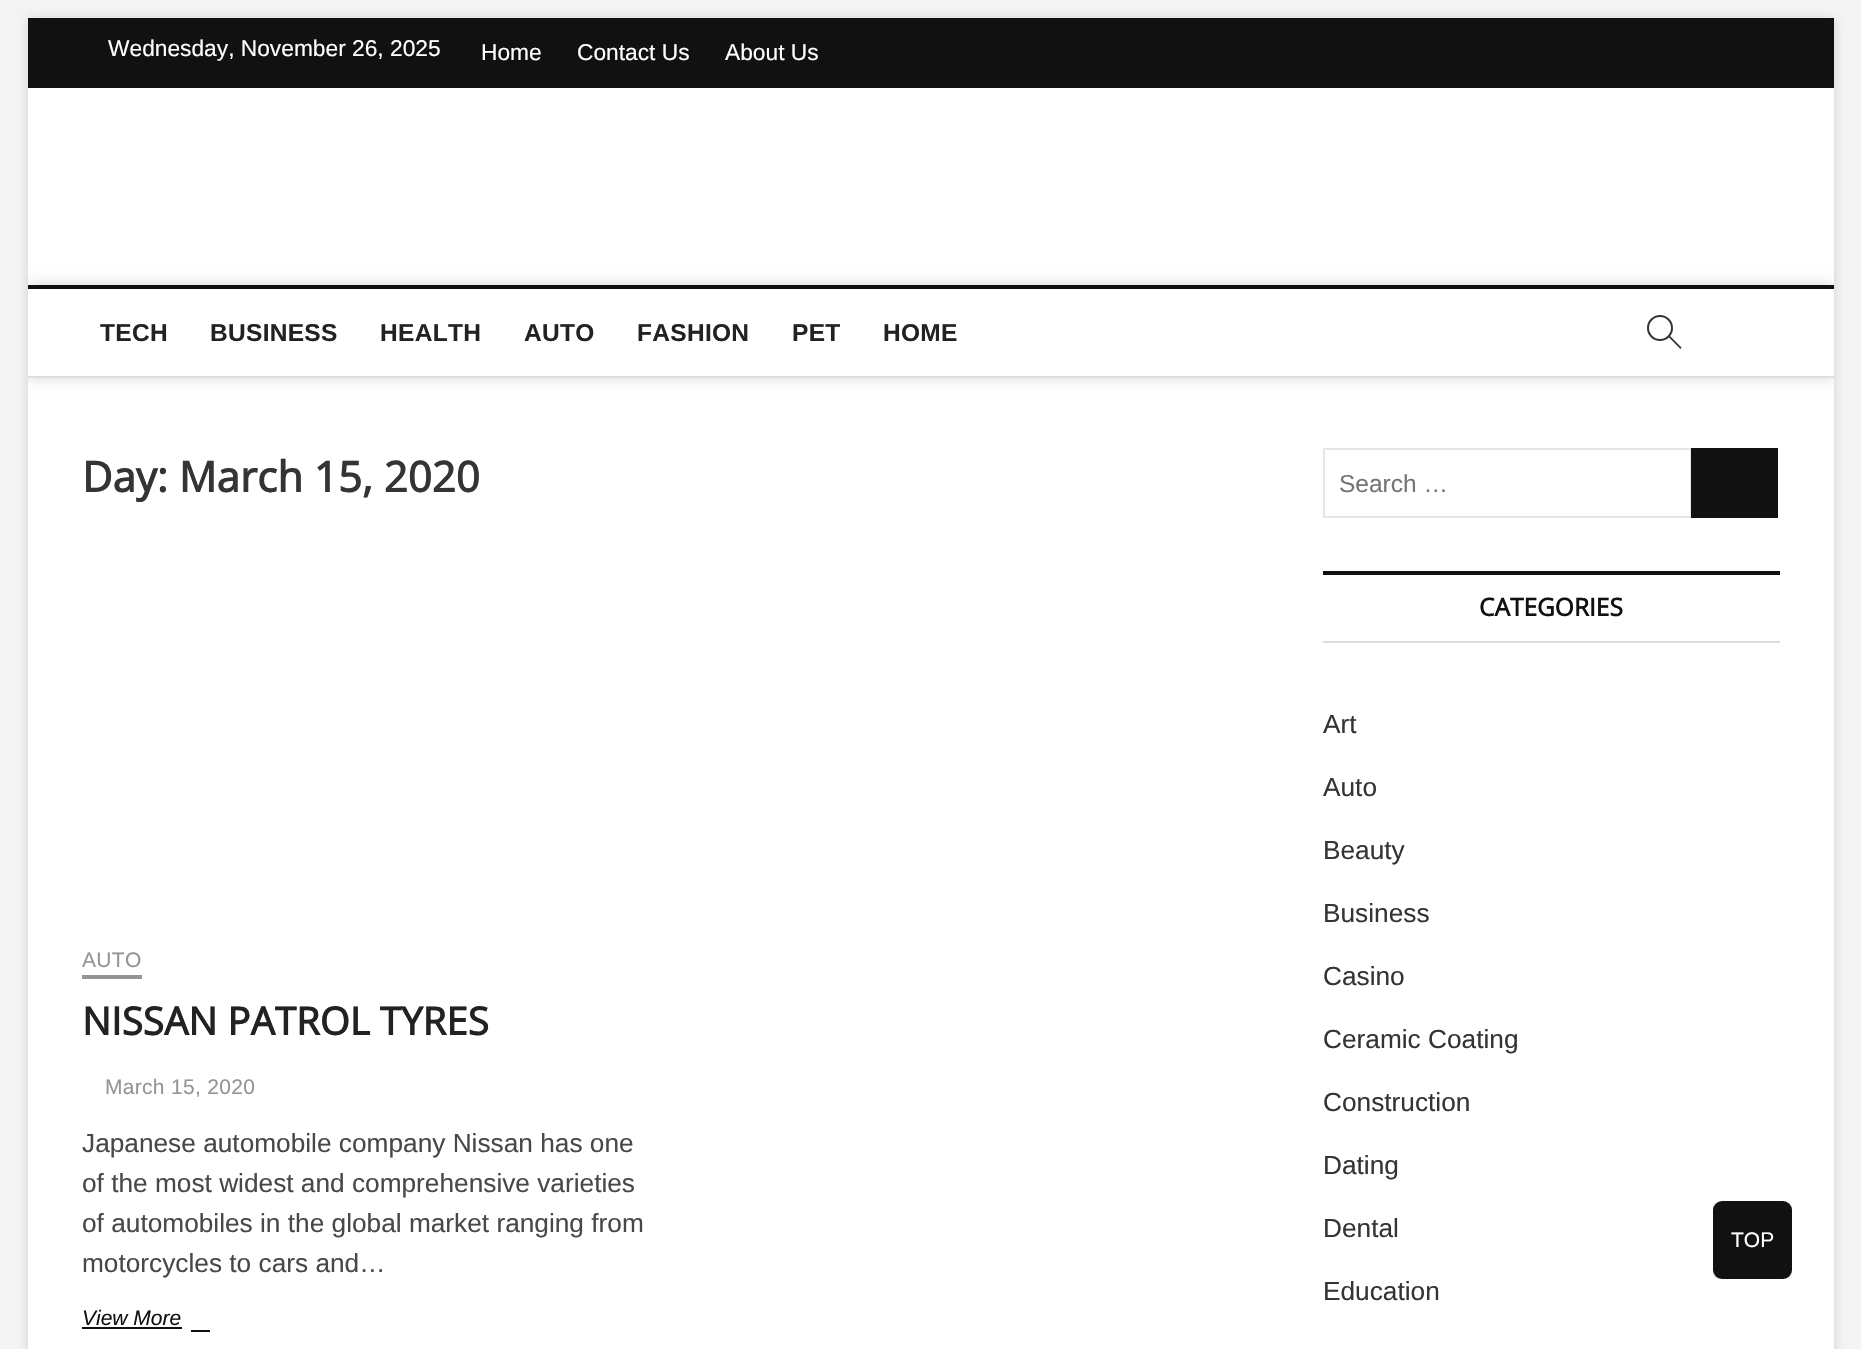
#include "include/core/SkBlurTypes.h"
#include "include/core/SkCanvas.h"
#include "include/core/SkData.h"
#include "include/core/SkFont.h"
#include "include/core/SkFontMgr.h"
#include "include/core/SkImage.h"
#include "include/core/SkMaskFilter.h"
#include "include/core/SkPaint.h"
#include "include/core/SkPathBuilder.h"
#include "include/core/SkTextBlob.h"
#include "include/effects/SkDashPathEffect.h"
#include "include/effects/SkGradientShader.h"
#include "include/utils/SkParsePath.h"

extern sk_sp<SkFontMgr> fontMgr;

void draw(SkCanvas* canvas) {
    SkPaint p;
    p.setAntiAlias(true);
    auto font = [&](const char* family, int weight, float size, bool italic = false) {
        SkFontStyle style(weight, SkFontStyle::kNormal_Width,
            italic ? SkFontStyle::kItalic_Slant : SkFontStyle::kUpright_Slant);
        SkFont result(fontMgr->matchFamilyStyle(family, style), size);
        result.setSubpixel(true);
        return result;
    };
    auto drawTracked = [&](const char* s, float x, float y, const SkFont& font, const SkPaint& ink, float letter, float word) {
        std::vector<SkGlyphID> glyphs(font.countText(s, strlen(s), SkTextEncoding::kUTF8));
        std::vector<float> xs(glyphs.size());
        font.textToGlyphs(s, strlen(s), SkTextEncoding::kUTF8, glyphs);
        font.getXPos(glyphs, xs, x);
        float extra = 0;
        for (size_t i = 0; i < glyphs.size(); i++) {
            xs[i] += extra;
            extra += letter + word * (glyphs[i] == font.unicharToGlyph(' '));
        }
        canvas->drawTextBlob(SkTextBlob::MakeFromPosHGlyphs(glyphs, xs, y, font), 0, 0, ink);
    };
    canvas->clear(0xFFF4F4F4);
    p.setColor(0x26000000);
    p.setMaskFilter(SkMaskFilter::MakeBlur(kNormal_SkBlurStyle, 5));
    canvas->drawRect(SkRect::MakeLTRB(28, 19, 1834, 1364), p);
    p.setMaskFilter(nullptr);
    p.setColor(0xFFFFFFFF);
    canvas->drawRect(SkRect::MakeLTRB(28, 88, 1834, 1349), p);
    p.setColor(0xFF111111);
    canvas->drawRect(SkRect::MakeLTRB(28, 18, 1834, 88), p);
    auto font1 = font("Liberation Sans", 400, 22.75f);
    p.setColor(0xFFFFFFFF);
    {
        const struct { const char* s; float x, y; } items[] = {
            {"Wednesday, November 26, 2025", 108, 56},
            {"Home", 481, 60},
            {"Contact Us", 577, 60},
            {"About Us", 725, 60},
        };
        for (auto [s, x, y] : items) {
            canvas->drawString(s, x, y, font1, p);
        }
    }
    canvas->save();
    canvas->clipRect(SkRect::MakeLTRB(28, 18, 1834, 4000));
    canvas->clipPath(SkPathBuilder(SkPathFillType::kEvenOdd).moveTo(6, 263).lineTo(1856, 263).lineTo(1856, 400).lineTo(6, 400).close().moveTo(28, 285).lineTo(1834, 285).lineTo(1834, 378).lineTo(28, 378).close().detach(), true);
    p.setColor(0x26000000);
    p.setMaskFilter(SkMaskFilter::MakeBlur(kNormal_SkBlurStyle, 7));
    canvas->drawRect(SkRect::MakeLTRB(28, 285, 1834, 378), p);
    p.setMaskFilter(nullptr);
    canvas->restore();
    p.setColor(0xFF111111);
    canvas->drawRect(SkRect::MakeLTRB(28, 285, 1834, 289), p);
    p.setColor(0xFFDDDDDD);
    canvas->drawRect(SkRect::MakeLTRB(28, 376, 1834, 378), p);
    auto font2 = font("Liberation Sans", 700, 24.5f);
    p.setColor(0xFF222222);
    {
        const struct { const char* s; float x, y; } items[] = {
            {"TECH", 100, 341},
            {"BUSINESS", 210, 341},
            {"HEALTH", 380, 341},
            {"AUTO", 524, 341},
            {"FASHION", 637, 341},
            {"PET", 792, 341},
            {"HOME", 883, 341},
        };
        for (auto [s, x, y] : items) {
            drawTracked(s, x, y, font2, p, 0.3f, 0);
        }
    }
    p.setStyle(SkPaint::kStroke_Style);
    p.setStrokeWidth(2);
    p.setColor(0xFF333333);
    canvas->drawCircle(1660, 328, 12, p);
    p.setStyle(SkPaint::kFill_Style);
    canvas->drawPath(SkPathBuilder().moveTo(1668, 336.5f).lineTo(1669.5f, 335.5f).lineTo(1681.5f, 347.5f).lineTo(1680.5f, 349).close().detach(), p);
    auto font3 = font("Open Sans", 700, 42);
    p.setColor(0xFF343434);
    canvas->drawString("Day: March 15, 2020", 82, 492, font3, p);
    auto font4 = font("Liberation Sans", 400, 21);
    p.setColor(0xFF949494);
    drawTracked("AUTO", 82, 967, font4, p, 0.3f, 0);
    canvas->drawRect(SkRect::MakeLTRB(82, 975, 142, 979), p);
    auto font5 = font("Open Sans", 700, 38.5f);
    p.setColor(0xFF222222);
    canvas->drawString("NISSAN PATROL TYRES", 82, 1035, font5, p);
    p.setColor(0xFF949494);
    drawTracked("March 15, 2020", 105, 1094, font4, p, 0.3f, 0);
    auto font6 = font("Liberation Sans", 400, 26.25f);
    p.setColor(0xFF484848);
    {
        const struct { const char* s; float x, y; } items[] = {
            {"Japanese automobile company Nissan has one", 82, 1152},
            {"of the most widest and comprehensive varieties", 82, 1192},
            {"of automobiles in the global market ranging from", 82, 1232},
            {"motorcycles to cars and…", 82, 1272},
        };
        for (auto [s, x, y] : items) {
            canvas->drawString(s, x, y, font6, p);
        }
    }
    auto font7 = font("Liberation Sans", 400, 21, true);
    p.setColor(0xFF111111);
    canvas->drawString("View More", 82, 1325, font7, p);
    canvas->drawRect(SkRect::MakeLTRB(82, 1327, 182, 1329), p);
    canvas->drawRect(SkRect::MakeLTRB(191, 1330, 210, 1332), p);
    p.setStyle(SkPaint::kStroke_Style);
    p.setColor(0xFFE6E6E6);
    canvas->drawRect(SkRect::MakeLTRB(1324, 449, 1691, 517), p);
    auto font8 = font("Liberation Sans", 400, 24.5f);
    p.setStyle(SkPaint::kFill_Style);
    p.setColor(0xFF757575);
    canvas->drawString("Search …", 1339, 492, font8, p);
    {
        const struct { float l, t, r, b; SkColor color; } items[] = {
            {1691, 448, 1778, 518, 0xFF111111},
            {1323, 571, 1780, 575, 0xFF111111},
            {1323, 641, 1780, 643, 0xFFDDDDDD},
        };
        for (auto [l, t, r, b, color] : items) {
            p.setColor(color);
            canvas->drawRect(SkRect::MakeLTRB(l, t, r, b), p);
        }
    }
    auto font9 = font("Open Sans", 700, 24.5f);
    p.setColor(0xFF111111);
    canvas->drawString("CATEGORIES", 1479, 616, font9, p);
    p.setColor(0xFF343434);
    {
        const struct { const char* s; float x, y; } items[] = {
            {"Art", 1323, 733},
            {"Auto", 1323, 796},
            {"Beauty", 1323, 859},
            {"Business", 1323, 922},
            {"Casino", 1323, 985},
            {"Ceramic Coating", 1323, 1048},
            {"Construction", 1323, 1111},
            {"Dating", 1323, 1174},
            {"Dental", 1323, 1237},
            {"Education", 1323, 1300},
        };
        for (auto [s, x, y] : items) {
            canvas->drawString(s, x, y, font6, p);
        }
    }
    canvas->save();
    canvas->clipRect(SkRect::MakeLTRB(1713, 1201, 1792, 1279));
    p.setColor(0x14000000);
    p.setMaskFilter(SkMaskFilter::MakeBlur(kNormal_SkBlurStyle, 2.5f));
    canvas->drawRoundRect(SkRect::MakeLTRB(1713, 1204, 1792, 1283), 9, 9, p);
    p.setMaskFilter(nullptr);
    canvas->restore();
    p.setColor(0xFF111111);
    canvas->drawRoundRect(SkRect::MakeLTRB(1713, 1201, 1792, 1279), 9, 9, p);
    p.setColor(0xFFFFFFFF);
    canvas->drawString("TOP", 1731, 1247, font4, p);
}
